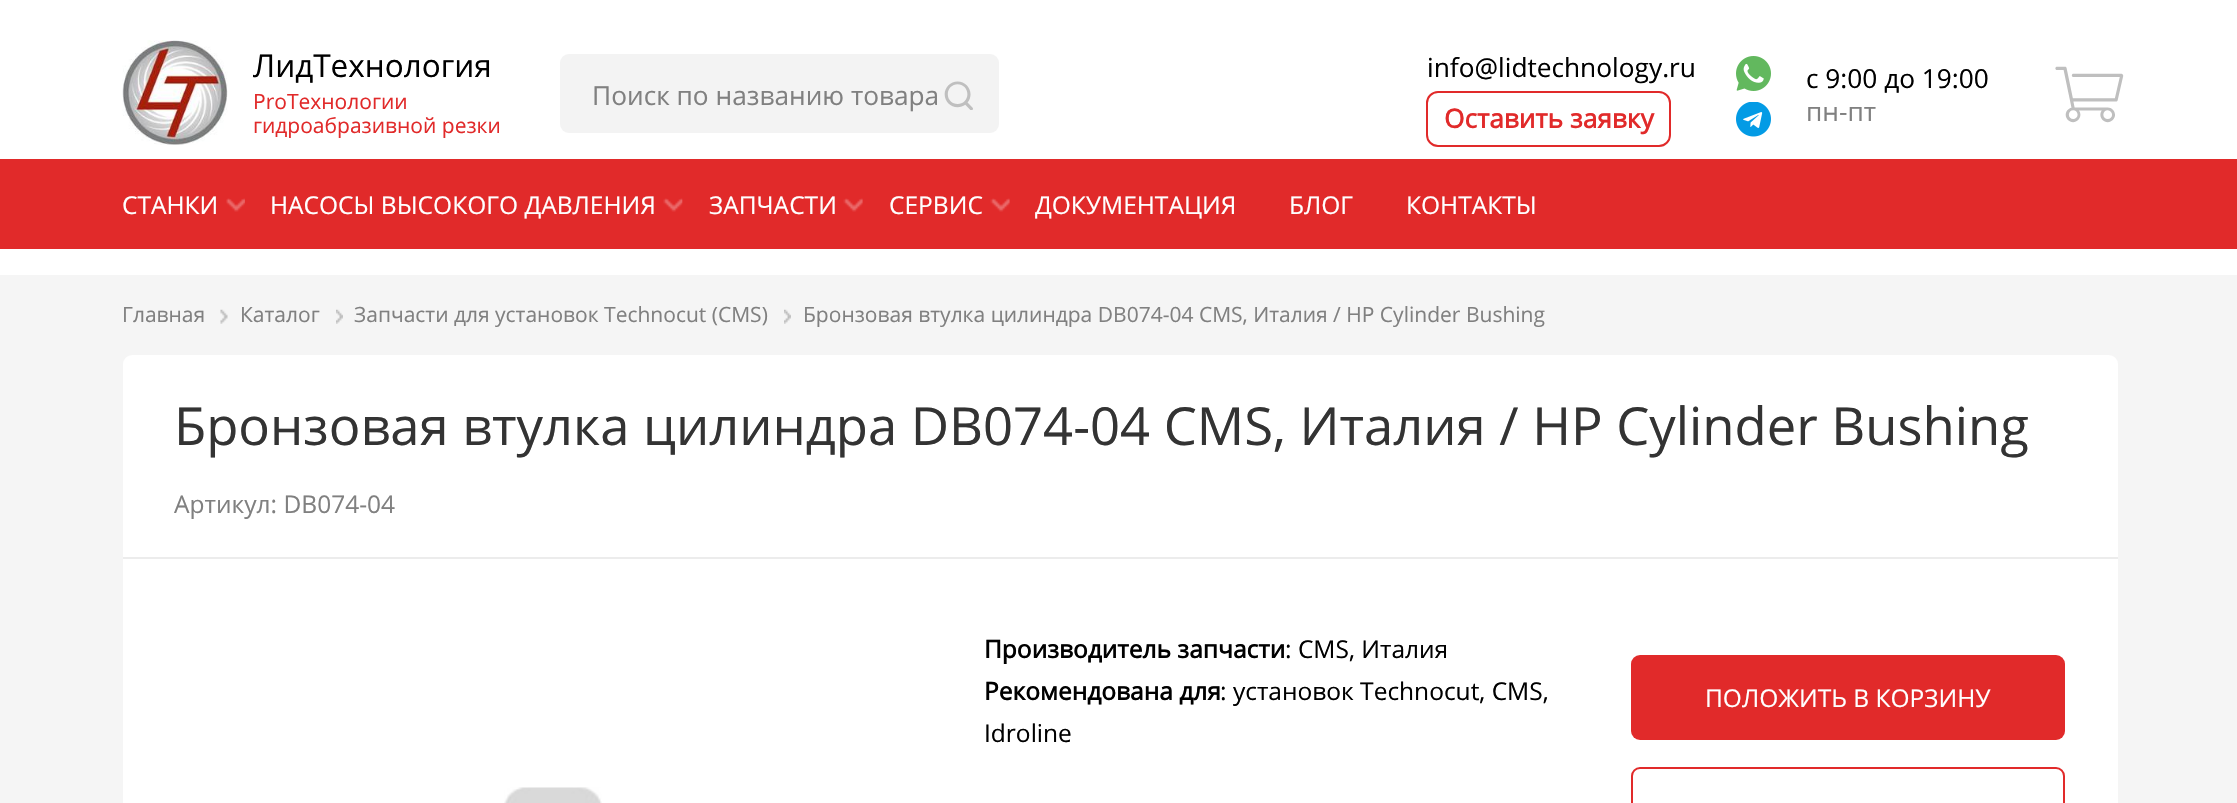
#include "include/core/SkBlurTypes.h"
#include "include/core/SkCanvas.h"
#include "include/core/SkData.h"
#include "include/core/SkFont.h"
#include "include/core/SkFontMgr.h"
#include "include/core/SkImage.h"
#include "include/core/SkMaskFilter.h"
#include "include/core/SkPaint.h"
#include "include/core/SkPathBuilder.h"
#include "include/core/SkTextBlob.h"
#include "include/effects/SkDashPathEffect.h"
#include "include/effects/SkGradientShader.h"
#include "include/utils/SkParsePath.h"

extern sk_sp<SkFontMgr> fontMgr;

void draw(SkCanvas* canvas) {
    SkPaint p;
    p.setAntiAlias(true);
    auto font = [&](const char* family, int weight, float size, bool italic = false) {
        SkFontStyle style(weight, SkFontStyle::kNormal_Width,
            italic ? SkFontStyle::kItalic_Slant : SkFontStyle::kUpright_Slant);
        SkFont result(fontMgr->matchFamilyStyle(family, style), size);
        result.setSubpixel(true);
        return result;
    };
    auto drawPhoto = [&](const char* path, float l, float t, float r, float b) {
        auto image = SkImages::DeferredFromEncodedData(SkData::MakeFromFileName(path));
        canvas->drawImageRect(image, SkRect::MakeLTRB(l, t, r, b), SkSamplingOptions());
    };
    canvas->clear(0xFFF5F5F5);
    p.setColor(0xFFFFFFFF);
    canvas->drawRect(SkRect::MakeLTRB(0, 0, 2237, 275), p);
    drawPhoto("media/1.png", 122, 40, 228, 145);
    auto font1 = font("Open Sans", 400, 31.5f);
    p.setColor(0xFF000000);
    canvas->drawString("ЛидТехнология", 253, 77, font1, p);
    auto font2 = font("Open Sans", 400, 21);
    p.setColor(0xFFE12A2A);
    canvas->drawString("ProТехнологии", 253, 109, font2, p);
    canvas->drawString("гидроабразивной резки", 253, 133, font2, p);
    p.setColor(0xFFF3F3F3);
    canvas->drawRoundRect(SkRect::MakeLTRB(560, 54, 999, 133), 9, 9, p);
    auto font3 = font("Open Sans", 400, 26.25f);
    p.setColor(0xFF808080);
    canvas->drawString("Поиск по названию товара", 592, 105, font3, p);
    drawPhoto("media/2.png", 944, 81, 973, 110);
    p.setColor(0xFF000000);
    canvas->drawString("info@lidtechnology.ru", 1427, 77, font3, p);
    p.setStyle(SkPaint::kStroke_Style);
    p.setStrokeWidth(2);
    p.setColor(0xFFE12A2A);
    canvas->drawRoundRect(SkRect::MakeLTRB(1427, 92, 1670, 146), 11, 11, p);
    auto font4 = font("Open Sans", 700, 26.25f);
    p.setStyle(SkPaint::kFill_Style);
    canvas->drawString("Оставить заявку", 1444, 128, font4, p);
    drawPhoto("media/3.png", 1736, 56, 1771, 91);
    drawPhoto("media/4.png", 1736, 102, 1771, 137);
    p.setColor(0xFF000000);
    canvas->drawString("с 9:00 до 19:00", 1806, 88, font3, p);
    p.setColor(0xFF808080);
    canvas->drawString("пн-пт", 1806, 121, font3, p);
    drawPhoto("media/5.png", 2055, 66, 2124, 123);
    p.setColor(0xFFE12A2A);
    canvas->drawRect(SkRect::MakeLTRB(0, 159, 2237, 249), p);
    auto font5 = font("Open Sans", 400, 24.5f);
    p.setColor(0xFFFFFFFF);
    canvas->drawString("СТАНКИ", 122, 214, font5, p);
    drawPhoto("media/6.png", 226, 198, 245, 212);
    canvas->drawString("НАСОСЫ ВЫСОКОГО ДАВЛЕНИЯ", 270, 214, font5, p);
    drawPhoto("media/7.png", 663, 198, 683, 212);
    canvas->drawString("ЗАПЧАСТИ", 709, 214, font5, p);
    drawPhoto("media/8.png", 843, 198, 863, 212);
    canvas->drawString("СЕРВИС", 889, 214, font5, p);
    drawPhoto("media/9.png", 990, 198, 1010, 212);
    {
        const struct { const char* s; float x, y; } items[] = {
            {"ДОКУМЕНТАЦИЯ", 1035, 214},
            {"БЛОГ", 1289, 214},
            {"КОНТАКТЫ", 1406, 214},
        };
        for (auto [s, x, y] : items) {
            canvas->drawString(s, x, y, font5, p);
        }
    }
    p.setColor(0xFF808080);
    canvas->drawString("Главная", 122, 322, font2, p);
    drawPhoto("media/10.png", 220, 309, 228, 324);
    canvas->drawString("Каталог", 240, 322, font2, p);
    drawPhoto("media/11.png", 336, 309, 343, 324);
    canvas->drawString("Запчасти для установок Technocut (CMS)", 354, 322, font2, p);
    drawPhoto("media/12.png", 784, 309, 791, 324);
    canvas->drawString("Бронзовая втулка цилиндра DB074-04 CMS, Италия / HP Cylinder Bushing", 803, 322, font2, p);
    p.setColor(0xFFFFFFFF);
    canvas->drawRoundRect(SkRect::MakeLTRB(123, 355, 2118, 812), 9, 9, p);
    auto font6 = font("Open Sans", 400, 52.5f);
    p.setColor(0xFF333333);
    canvas->drawString("Бронзовая втулка цилиндра DB074-04 CMS, Италия / HP Cylinder Bushing", 174, 445, font6, p);
    p.setColor(0xFF808080);
    canvas->drawString("Артикул: DB074-04", 174, 513, font5, p);
    p.setColor(0xFFECECEC);
    canvas->drawRect(SkRect::MakeLTRB(123, 557, 2118, 559), p);
    auto font7 = font("Open Sans", 700, 24.5f);
    p.setColor(0xFF000000);
    canvas->drawString("Производитель запчасти", 984, 658, font7, p);
    canvas->drawString(": CMS, Италия", 1285, 658, font5, p);
    canvas->drawString("Рекомендована для", 984, 700, font7, p);
    canvas->drawString(": установок Technocut, CMS,", 1220, 700, font5, p);
    canvas->drawString("Idroline", 984, 742, font5, p);
    p.setColor(0xFFE12A2A);
    canvas->drawRoundRect(SkRect::MakeLTRB(1631, 655, 2065, 740), 9, 9, p);
    p.setColor(0xFFFFFFFF);
    canvas->drawString("ПОЛОЖИТЬ В КОРЗИНУ", 1705, 707, font5, p);
    p.setStyle(SkPaint::kStroke_Style);
    p.setColor(0xFFE12A2A);
    canvas->drawRoundRect(SkRect::MakeLTRB(1632, 768, 2064, 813), 8, 8, p);
    drawPhoto("media/13.png", 504, 787, 602, 803);
}
